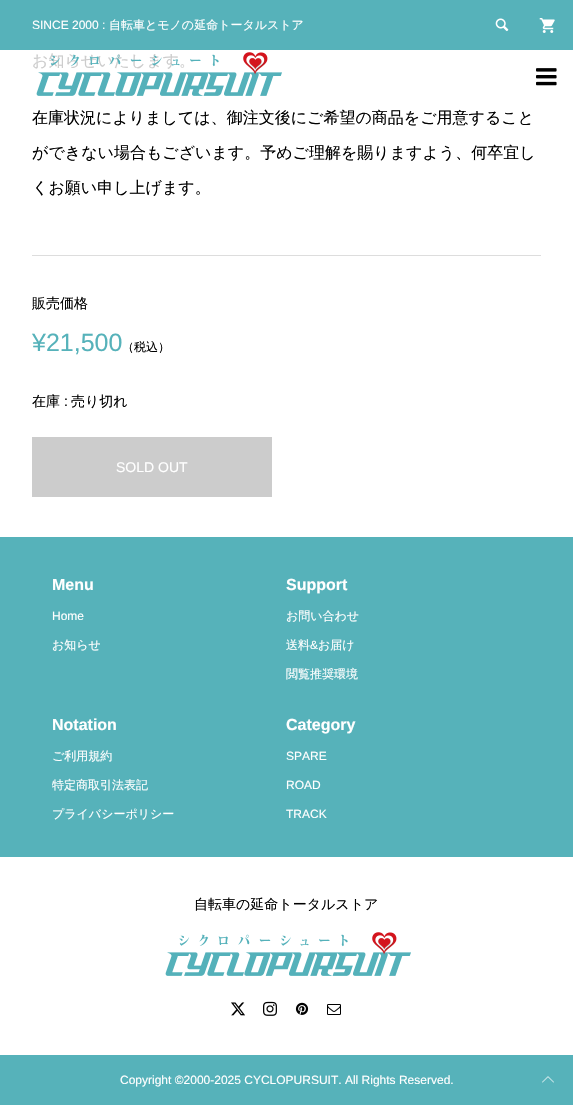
#include "include/core/SkBlurTypes.h"
#include "include/core/SkCanvas.h"
#include "include/core/SkData.h"
#include "include/core/SkFont.h"
#include "include/core/SkFontMgr.h"
#include "include/core/SkImage.h"
#include "include/core/SkMaskFilter.h"
#include "include/core/SkPaint.h"
#include "include/core/SkPathBuilder.h"
#include "include/core/SkTextBlob.h"
#include "include/effects/SkDashPathEffect.h"
#include "include/effects/SkGradientShader.h"
#include "include/utils/SkParsePath.h"

extern sk_sp<SkFontMgr> fontMgr;

void draw(SkCanvas* canvas) {
    SkPaint p;
    p.setAntiAlias(true);
    auto font = [&](const char* family, int weight, float size, bool italic = false) {
        SkFontStyle style(weight, SkFontStyle::kNormal_Width,
            italic ? SkFontStyle::kItalic_Slant : SkFontStyle::kUpright_Slant);
        SkFont result(fontMgr->matchFamilyStyle(family, style), size);
        result.setSubpixel(true);
        return result;
    };
    auto drawPhoto = [&](const char* path, float l, float t, float r, float b) {
        auto image = SkImages::DeferredFromEncodedData(SkData::MakeFromFileName(path));
        canvas->drawImageRect(image, SkRect::MakeLTRB(l, t, r, b), SkSamplingOptions());
    };
    canvas->clear(0xFFFFFFFF);
    p.setColor(0xFF56B2BA);
    canvas->drawRect(SkRect::MakeLTRB(0, 0, 573, 50), p);
    auto font1 = font("Liberation Sans", 400, 12);
    p.setColor(0xFFFFFFFF);
    canvas->drawString("SINCE 2000 :", 32, 29, font1, p);
    auto font2 = font("WenQuanYi Zen Hei", 500, 12);
    canvas->drawString("自転車とモノの延命トータルストア", 109, 29, font2, p);
    drawPhoto("media/1.png", 495, 18, 509, 32);
    drawPhoto("media/2.png", 539, 18, 555, 33);
    auto font3 = font("WenQuanYi Zen Hei", 500, 16);
    p.setColor(0xFFCCCCCC);
    canvas->drawString("お知らせいたします。", 32, 66, font3, p);
    drawPhoto("media/3.png", 36, 52, 282, 96);
    drawPhoto("media/4.png", 536, 68, 557, 86);
    p.setColor(0xFF000000);
    {
        const struct { const char* s; float x, y; } items[] = {
            {"在庫状況によりましては、御注文後にご希望の商品をご用意すること", 32, 123},
            {"ができない場合もございます。予めご理解を賜りますよう、何卒宜し", 32, 158},
            {"くお願い申し上げます。", 32, 193},
        };
        for (auto [s, x, y] : items) {
            canvas->drawString(s, x, y, font3, p);
        }
    }
    p.setColor(0xFFDDDDDD);
    canvas->drawRect(SkRect::MakeLTRB(32, 255, 541, 256), p);
    auto font4 = font("WenQuanYi Zen Hei", 500, 14);
    p.setColor(0xFF000000);
    canvas->drawString("販売価格", 32, 308, font4, p);
    auto font5 = font("Liberation Sans", 400, 25);
    p.setColor(0xFF56B2BA);
    canvas->drawString("¥21,500", 32, 351, font5, p);
    p.setColor(0xFF000000);
    canvas->drawString("（税込）", 122, 351, font2, p);
    canvas->drawString("在庫", 32, 406, font4, p);
    auto font6 = font("Liberation Sans", 400, 14);
    canvas->drawString(":", 64, 406, font6, p);
    canvas->drawString("売り切れ", 71, 406, font4, p);
    p.setColor(0xFFCCCCCC);
    canvas->drawRect(SkRect::MakeLTRB(32, 437, 272, 497), p);
    p.setColor(0xFFFFFFFF);
    canvas->drawString("SOLD OUT", 116, 472, font6, p);
    p.setColor(0xFF56B2BA);
    canvas->drawRect(SkRect::MakeLTRB(0, 537, 573, 857), p);
    auto font7 = font("Liberation Sans", 700, 16);
    p.setColor(0xFFFFFFFF);
    canvas->drawString("Menu", 52, 590, font7, p);
    canvas->drawString("Home", 52, 620, font1, p);
    canvas->drawString("お知らせ", 52, 649, font2, p);
    canvas->drawString("Support", 286, 590, font7, p);
    canvas->drawString("お問い合わせ", 286, 620, font2, p);
    canvas->drawString("送料", 286, 649, font2, p);
    canvas->drawString("&", 310, 649, font1, p);
    canvas->drawString("お届け", 318, 649, font2, p);
    canvas->drawString("閲覧推奨環境", 286, 678, font2, p);
    canvas->drawString("Notation", 52, 730, font7, p);
    {
        const struct { const char* s; float x, y; } items[] = {
            {"ご利用規約", 52, 760},
            {"特定商取引法表記", 52, 789},
            {"プライバシーポリシー", 52, 818},
        };
        for (auto [s, x, y] : items) {
            canvas->drawString(s, x, y, font2, p);
        }
    }
    canvas->drawString("Category", 286, 730, font7, p);
    {
        const struct { const char* s; float x, y; } items[] = {
            {"SPARE", 286, 760},
            {"ROAD", 286, 789},
            {"TRACK", 286, 818},
        };
        for (auto [s, x, y] : items) {
            canvas->drawString(s, x, y, font1, p);
        }
    }
    p.setColor(0xFF000000);
    canvas->drawString("自転車の延命トータルストア", 194, 909, font4, p);
    drawPhoto("media/5.png", 165, 932, 411, 976);
    drawPhoto("media/6.png", 231, 1002, 245, 1016);
    drawPhoto("media/7.png", 263, 1001, 277, 1016);
    drawPhoto("media/8.png", 295, 1002, 309, 1015);
    drawPhoto("media/9.png", 327, 1004, 341, 1015);
    p.setColor(0xFF56B2BA);
    canvas->drawRect(SkRect::MakeLTRB(0, 1055, 573, 1105), p);
    p.setColor(0xFFFFFFFF);
    canvas->drawString("Copyright ©2000-2025 CYCLOPURSUIT. All Rights Reserved.", 120, 1084, font1, p);
    drawPhoto("media/10.png", 542, 1076, 554, 1083);
}
